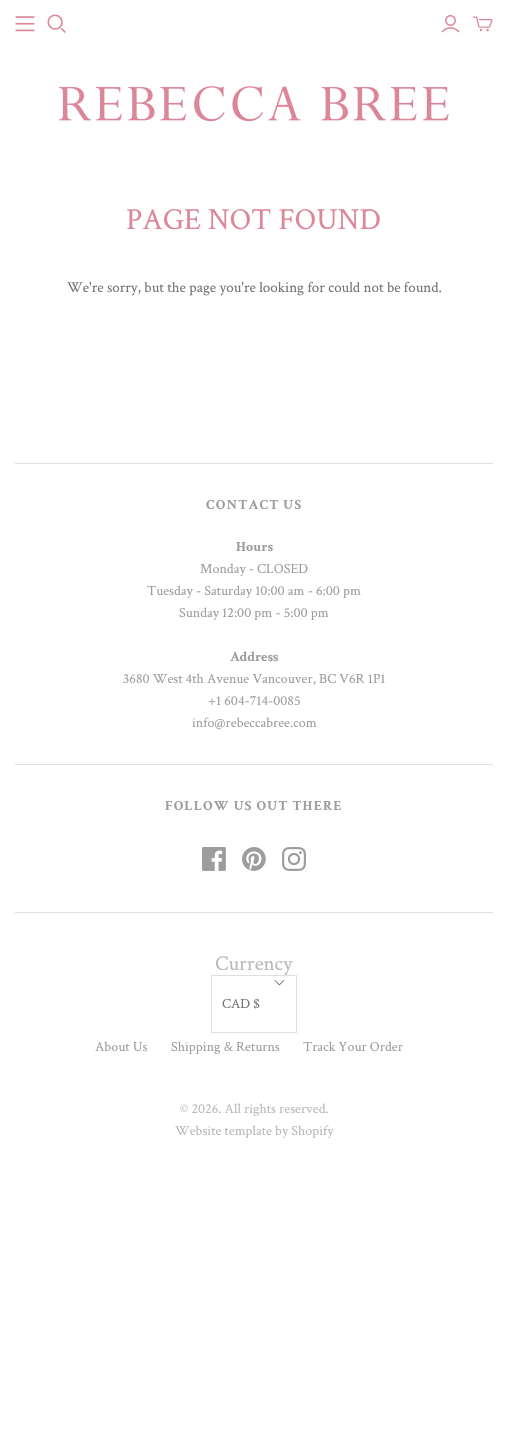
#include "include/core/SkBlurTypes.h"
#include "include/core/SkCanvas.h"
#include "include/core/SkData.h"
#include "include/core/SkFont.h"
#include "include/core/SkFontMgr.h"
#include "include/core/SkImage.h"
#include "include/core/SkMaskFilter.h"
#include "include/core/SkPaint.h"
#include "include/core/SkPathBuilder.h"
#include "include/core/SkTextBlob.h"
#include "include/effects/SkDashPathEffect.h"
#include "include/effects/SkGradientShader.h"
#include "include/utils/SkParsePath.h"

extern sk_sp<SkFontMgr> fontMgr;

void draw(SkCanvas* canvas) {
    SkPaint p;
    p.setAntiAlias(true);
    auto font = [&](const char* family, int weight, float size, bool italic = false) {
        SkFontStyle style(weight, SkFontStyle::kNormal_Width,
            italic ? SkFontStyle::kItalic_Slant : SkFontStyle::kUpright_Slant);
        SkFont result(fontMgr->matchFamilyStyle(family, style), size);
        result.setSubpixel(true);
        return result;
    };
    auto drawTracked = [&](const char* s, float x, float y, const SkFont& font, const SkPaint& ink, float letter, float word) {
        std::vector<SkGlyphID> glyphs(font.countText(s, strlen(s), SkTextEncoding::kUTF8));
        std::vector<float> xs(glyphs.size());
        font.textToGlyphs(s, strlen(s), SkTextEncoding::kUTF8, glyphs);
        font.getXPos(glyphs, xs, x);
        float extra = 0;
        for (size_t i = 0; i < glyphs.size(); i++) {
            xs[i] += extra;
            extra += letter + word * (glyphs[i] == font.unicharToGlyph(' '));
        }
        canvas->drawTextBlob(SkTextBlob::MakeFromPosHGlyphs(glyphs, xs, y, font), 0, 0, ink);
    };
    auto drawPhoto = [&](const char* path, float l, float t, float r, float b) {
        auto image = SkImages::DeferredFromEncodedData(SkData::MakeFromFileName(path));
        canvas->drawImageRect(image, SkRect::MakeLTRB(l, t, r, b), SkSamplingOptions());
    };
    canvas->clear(0xFFFFFFFF);
    drawPhoto("media/1.png", 15, 16, 35, 32);
    drawPhoto("media/2.png", 47, 14, 66, 33);
    drawPhoto("media/3.png", 441, 15, 460, 33);
    drawPhoto("media/4.png", 473, 16, 493, 32);
    drawPhoto("media/5.png", 59, 86, 449, 122);
    auto font1 = font("Crimson Text", 400, 30.6f);
    p.setColor(0xFFDC8699);
    canvas->drawString("PAGE NOT FOUND", 126, 229, font1, p);
    auto font2 = font("Crimson Text", 400, 15);
    p.setColor(0xFF737373);
    canvas->drawString("We're sorry, but the page you're looking for could not be found.", 67, 292, font2, p);
    p.setColor(0xFFDFDFDF);
    canvas->drawRect(SkRect::MakeLTRB(15, 463, 493, 464), p);
    canvas->drawRect(SkRect::MakeLTRB(15, 912, 493, 913), p);
    auto font3 = font("Crimson Text", 700, 14);
    p.setColor(0xFF9D9D9D);
    drawTracked("CONTACT US", 206, 509, font3, p, 1.1f, 0);
    canvas->drawString("Hours", 236, 551, font3, p);
    auto font4 = font("Crimson Text", 400, 14);
    {
        const struct { const char* s; float x, y; } items[] = {
            {"Monday - CLOSED", 200, 573},
            {"Tuesday - Saturday 10:00 am - 6:00 pm", 147, 595},
            {"Sunday 12:00 pm - 5:00 pm", 179, 617},
        };
        for (auto [s, x, y] : items) {
            canvas->drawString(s, x, y, font4, p);
        }
    }
    canvas->drawString("Address", 230, 661, font3, p);
    {
        const struct { const char* s; float x, y; } items[] = {
            {"3680 West 4th Avenue Vancouver, BC V6R 1P1", 123, 683},
            {"+1 604-714-0085", 208, 705},
            {"info@rebeccabree.com", 192, 727},
        };
        for (auto [s, x, y] : items) {
            canvas->drawString(s, x, y, font4, p);
        }
    }
    p.setColor(0xFFDFDFDF);
    canvas->drawRect(SkRect::MakeLTRB(15, 764, 493, 765), p);
    p.setColor(0xFF9D9D9D);
    drawTracked("FOLLOW US OUT THERE", 165, 810, font3, p, 1.1f, 0);
    drawPhoto("media/6.png", 202, 847, 226, 871);
    drawPhoto("media/7.png", 242, 847, 266, 871);
    drawPhoto("media/8.png", 282, 847, 306, 871);
    auto font5 = font("Crimson Text", 400, 21);
    p.setColor(0xFFB9B9B9);
    canvas->drawString("Currency", 215, 970, font5, p);
    p.setStyle(SkPaint::kStroke_Style);
    p.setStrokeWidth(1);
    p.setColor(0xFFDFDFDF);
    canvas->drawRect(SkRect::MakeLTRB(211.5f, 975.5f, 296.5f, 1032.5f), p);
    drawPhoto("media/9.png", 274, 980, 285, 986);
    p.setStyle(SkPaint::kFill_Style);
    p.setColor(0xFF737373);
    canvas->drawString("CAD $", 222, 1008, font4, p);
    p.setColor(0xFF9D9D9D);
    {
        const struct { const char* s; float x, y; } items[] = {
            {"About Us", 95, 1051},
            {"Shipping & Returns", 171, 1051},
            {"Track Your Order", 303, 1051},
        };
        for (auto [s, x, y] : items) {
            canvas->drawString(s, x, y, font4, p);
        }
    }
    p.setColor(0xFFB9B9B9);
    canvas->drawString("© 2026. All rights reserved.", 180, 1113, font4, p);
    canvas->drawString("Website template by Shopify", 175, 1135, font4, p);
}
